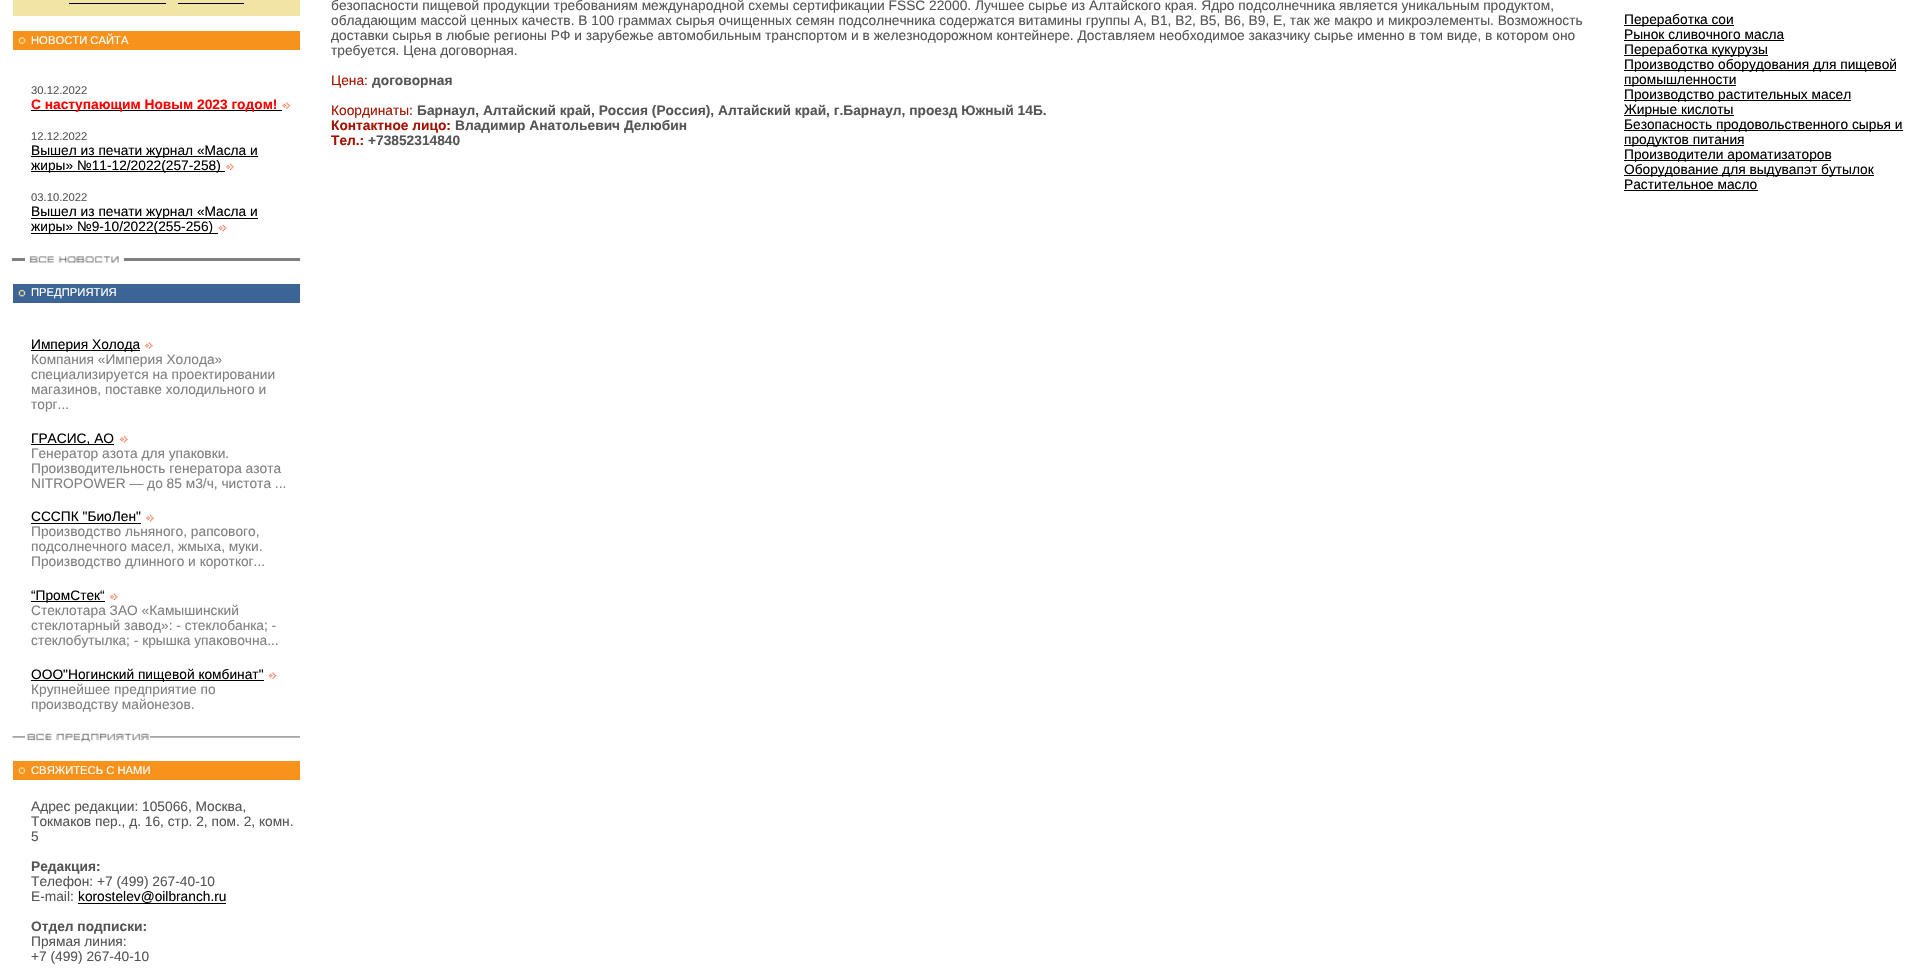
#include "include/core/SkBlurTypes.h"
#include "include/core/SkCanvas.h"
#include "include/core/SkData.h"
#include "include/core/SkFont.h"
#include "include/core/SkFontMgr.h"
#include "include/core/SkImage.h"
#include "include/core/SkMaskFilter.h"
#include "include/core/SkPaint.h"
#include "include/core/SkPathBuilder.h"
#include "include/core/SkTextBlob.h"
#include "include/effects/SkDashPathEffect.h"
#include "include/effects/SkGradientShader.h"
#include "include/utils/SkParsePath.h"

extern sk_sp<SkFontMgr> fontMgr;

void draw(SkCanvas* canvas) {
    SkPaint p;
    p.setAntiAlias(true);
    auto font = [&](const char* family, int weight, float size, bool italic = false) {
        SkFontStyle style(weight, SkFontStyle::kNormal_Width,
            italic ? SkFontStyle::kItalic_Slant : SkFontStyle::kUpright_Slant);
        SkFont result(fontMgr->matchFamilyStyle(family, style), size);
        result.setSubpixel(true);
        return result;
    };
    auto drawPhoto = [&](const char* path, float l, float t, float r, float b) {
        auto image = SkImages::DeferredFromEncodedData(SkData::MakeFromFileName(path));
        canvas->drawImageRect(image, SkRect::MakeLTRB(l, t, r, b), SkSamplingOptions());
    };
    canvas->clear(0xFFFFFFFF);
    {
        const struct { float l, t, r, b; SkColor color; } items[] = {
            {13, 0, 300, 16, 0xFFF2E4A4},
            {69, 3, 166, 4, 0xFF000000},
            {178, 3, 244, 4, 0xFF000000},
            {13, 31, 300, 50, 0xFFF7931D},
        };
        for (auto [l, t, r, b, color] : items) {
            p.setColor(color);
            canvas->drawRect(SkRect::MakeLTRB(l, t, r, b), p);
        }
    }
    drawPhoto("media/1.png", 18, 37, 26, 44);
    auto font1 = font("Liberation Sans", 400, 11.25f);
    p.setColor(0xFFFFFFFF);
    canvas->drawString("НОВОСТИ САЙТА", 31, 44, font1, p);
    p.setColor(0xFF555555);
    canvas->drawString("30.12.2022", 31, 94, font1, p);
    p.setColor(0xFF000000);
    canvas->drawRect(SkRect::MakeLTRB(31, 110, 282, 111), p);
    auto font2 = font("Liberation Sans", 700, 13.75f);
    p.setColor(0xFFFF0000);
    canvas->drawString("С наступающим Новым 2023 годом!", 31, 109, font2, p);
    drawPhoto("media/2.png", 282, 102, 291, 109);
    p.setColor(0xFF555555);
    canvas->drawString("12.12.2022", 31, 140, font1, p);
    p.setColor(0xFF000000);
    canvas->drawRect(SkRect::MakeLTRB(31, 156, 258, 157), p);
    auto font3 = font("Liberation Sans", 400, 13.75f);
    canvas->drawString("Вышел из печати журнал «Масла и", 31, 155, font3, p);
    canvas->drawRect(SkRect::MakeLTRB(31, 171, 225, 172), p);
    canvas->drawString("жиры» №11-12/2022(257-258)", 31, 170, font3, p);
    drawPhoto("media/3.png", 226, 163, 234, 171);
    p.setColor(0xFF555555);
    canvas->drawString("03.10.2022", 31, 201, font1, p);
    p.setColor(0xFF000000);
    canvas->drawRect(SkRect::MakeLTRB(31, 218, 258, 219), p);
    canvas->drawString("Вышел из печати журнал «Масла и", 31, 216, font3, p);
    canvas->drawRect(SkRect::MakeLTRB(31, 233, 218, 234), p);
    canvas->drawString("жиры» №9-10/2022(255-256)", 31, 231, font3, p);
    drawPhoto("media/4.png", 218, 224, 227, 232);
    p.setColor(0xFF7F8181);
    canvas->drawRect(SkRect::MakeLTRB(12, 258, 300, 261), p);
    p.setColor(0xFFFFFFFF);
    canvas->drawRect(SkRect::MakeLTRB(25, 258, 124, 261), p);
    drawPhoto("media/5.png", 29, 256, 119, 263);
    p.setColor(0xFF3C6494);
    canvas->drawRect(SkRect::MakeLTRB(13, 284, 300, 303), p);
    drawPhoto("media/6.png", 18, 289, 26, 297);
    p.setColor(0xFFFFFFFF);
    canvas->drawString("ПРЕДПРИЯТИЯ", 31, 296, font1, p);
    p.setColor(0xFF000000);
    canvas->drawRect(SkRect::MakeLTRB(31, 350, 140, 351), p);
    canvas->drawString("Империя Холода", 31, 349, font3, p);
    drawPhoto("media/7.png", 144, 342, 153, 349);
    p.setColor(0xFF808080);
    {
        const struct { const char* s; float x, y; } items[] = {
            {"Компания «Империя Холода»", 31, 364},
            {"специализируется на проектировании", 31, 379},
            {"магазинов, поставке холодильного и", 31, 394},
            {"торг...", 31, 409},
        };
        for (auto [s, x, y] : items) {
            canvas->drawString(s, x, y, font3, p);
        }
    }
    p.setColor(0xFF000000);
    canvas->drawRect(SkRect::MakeLTRB(31, 444, 114, 445), p);
    canvas->drawString("ГРАСИС, АО", 31, 443, font3, p);
    drawPhoto("media/8.png", 119, 436, 128, 443);
    p.setColor(0xFF808080);
    {
        const struct { const char* s; float x, y; } items[] = {
            {"Генератор азота для упаковки.", 31, 458},
            {"Производительность генератора азота", 31, 473},
            {"NITROPOWER — до 85 м3/ч, чистота ...", 31, 488},
        };
        for (auto [s, x, y] : items) {
            canvas->drawString(s, x, y, font3, p);
        }
    }
    p.setColor(0xFF000000);
    canvas->drawString("СССПК \"БиоЛен\"", 31, 521, font3, p);
    canvas->drawRect(SkRect::MakeLTRB(31, 523, 141, 524), p);
    drawPhoto("media/9.png", 146, 514, 154, 522);
    p.setColor(0xFF808080);
    {
        const struct { const char* s; float x, y; } items[] = {
            {"Производство льняного, рапсового,", 31, 536},
            {"подсолнечного масел, жмыха, муки.", 31, 551},
            {"Производство длинного и коротког...", 31, 566},
        };
        for (auto [s, x, y] : items) {
            canvas->drawString(s, x, y, font3, p);
        }
    }
    p.setColor(0xFF000000);
    canvas->drawRect(SkRect::MakeLTRB(31, 601, 105, 602), p);
    canvas->drawString("“ПромСтек“", 31, 600, font3, p);
    drawPhoto("media/10.png", 109, 593, 118, 601);
    p.setColor(0xFF808080);
    {
        const struct { const char* s; float x, y; } items[] = {
            {"Стеклотара ЗАО «Камышинский", 31, 615},
            {"стеклотарный завод»: - стеклобанка; -", 31, 630},
            {"стеклобутылка; - крышка упаковочна...", 31, 645},
        };
        for (auto [s, x, y] : items) {
            canvas->drawString(s, x, y, font3, p);
        }
    }
    p.setColor(0xFF000000);
    canvas->drawRect(SkRect::MakeLTRB(31, 680, 264, 681), p);
    canvas->drawString("ООО\"Ногинский пищевой комбинат\"", 31, 679, font3, p);
    drawPhoto("media/11.png", 268, 672, 277, 679);
    p.setColor(0xFF808080);
    canvas->drawString("Крупнейшее предприятие по", 31, 694, font3, p);
    canvas->drawString("производству майонезов.", 31, 709, font3, p);
    drawPhoto("media/12.png", 12, 736, 300, 738);
    p.setColor(0xFFFFFFFF);
    canvas->drawRect(SkRect::MakeLTRB(25, 736, 150, 738), p);
    drawPhoto("media/13.png", 27, 733, 149, 743);
    p.setColor(0xFFF7931D);
    canvas->drawRect(SkRect::MakeLTRB(13, 761, 300, 780), p);
    drawPhoto("media/1.png", 18, 767, 26, 774);
    p.setColor(0xFFFFFFFF);
    canvas->drawString("СВЯЖИТЕСЬ С НАМИ", 31, 774, font1, p);
    p.setColor(0xFF555555);
    {
        const struct { const char* s; float x, y; } items[] = {
            {"Адрес редакции: 105066, Москва,", 31, 811},
            {"Токмаков пер., д. 16, стр. 2, пом. 2, комн.", 31, 826},
            {"5", 31, 841},
        };
        for (auto [s, x, y] : items) {
            canvas->drawString(s, x, y, font3, p);
        }
    }
    canvas->drawString("Редакция:", 31, 871, font2, p);
    canvas->drawString("Телефон: +7 (499) 267-40-10", 31, 886, font3, p);
    canvas->drawString("E-mail:", 31, 901, font3, p);
    p.setColor(0xFF000000);
    canvas->drawString("korostelev@oilbranch.ru", 78, 901, font3, p);
    canvas->drawRect(SkRect::MakeLTRB(78, 903, 226, 904), p);
    p.setColor(0xFF555555);
    canvas->drawString("Отдел подписки:", 31, 931, font2, p);
    {
        const struct { const char* s; float x, y; } items[] = {
            {"Прямая линия:", 31, 946},
            {"+7 (499) 267-40-10", 31, 961},
            {"безопасности пищевой продукции требованиям международной схемы сертификации FSSC 22000. Лучшее сырье из Алтайского края. Ядро подсолнечника является уникальным продуктом,", 331, 10},
            {"обладающим массой ценных качеств. В 100 граммах сырья очищенных семян подсолнечника содержатся витамины группы А, В1, В2, В5, В6, В9, Е, так же макро и микроэлементы. Возможность", 331, 25},
            {"доставки сырья в любые регионы РФ и зарубежье автомобильным транспортом и в железнодорожном контейнере. Доставляем необходимое заказчику сырье именно в том виде, в котором оно", 331, 40},
            {"требуется. Цена договорная.", 331, 55},
        };
        for (auto [s, x, y] : items) {
            canvas->drawString(s, x, y, font3, p);
        }
    }
    p.setColor(0xFFA51300);
    canvas->drawString("Цена:", 331, 85, font3, p);
    p.setColor(0xFF555555);
    canvas->drawString("договорная", 372, 85, font2, p);
    p.setColor(0xFFA51300);
    canvas->drawString("Координаты:", 331, 115, font3, p);
    p.setColor(0xFF555555);
    canvas->drawString("Барнаул, Алтайский край, Россия (Россия), Алтайский край, г.Барнаул, проезд Южный 14Б.", 417, 115, font2, p);
    p.setColor(0xFFA51300);
    canvas->drawString("Контактное лицо:", 331, 130, font2, p);
    p.setColor(0xFF555555);
    canvas->drawString("Владимир Анатольевич Делюбин", 455, 130, font2, p);
    p.setColor(0xFFA51300);
    canvas->drawString("Тел.:", 331, 145, font2, p);
    p.setColor(0xFF555555);
    canvas->drawString("+73852314840", 368, 145, font2, p);
    p.setColor(0xFF000000);
    canvas->drawRect(SkRect::MakeLTRB(1624, 25, 1734, 26), p);
    canvas->drawString("Переработка сои", 1624, 24, font3, p);
    canvas->drawString("Рынок сливочного масла", 1624, 39, font3, p);
    canvas->drawRect(SkRect::MakeLTRB(1624, 40, 1784, 41), p);
    canvas->drawRect(SkRect::MakeLTRB(1624, 55, 1768, 56), p);
    canvas->drawString("Переработка кукурузы", 1624, 54, font3, p);
    canvas->drawRect(SkRect::MakeLTRB(1624, 70, 1896, 71), p);
    canvas->drawString("Производство оборудования для пищевой", 1624, 69, font3, p);
    canvas->drawRect(SkRect::MakeLTRB(1624, 85, 1736, 86), p);
    canvas->drawString("промышленности", 1624, 84, font3, p);
    canvas->drawRect(SkRect::MakeLTRB(1624, 100, 1851, 101), p);
    canvas->drawString("Производство растительных масел", 1624, 99, font3, p);
    canvas->drawRect(SkRect::MakeLTRB(1624, 115, 1734, 116), p);
    canvas->drawString("Жирные кислоты", 1624, 114, font3, p);
    canvas->drawRect(SkRect::MakeLTRB(1624, 130, 1903, 131), p);
    canvas->drawString("Безопасность продовольственного сырья и", 1624, 129, font3, p);
    canvas->drawRect(SkRect::MakeLTRB(1624, 145, 1744, 146), p);
    canvas->drawString("продуктов питания", 1624, 144, font3, p);
    canvas->drawRect(SkRect::MakeLTRB(1624, 160, 1831, 161), p);
    canvas->drawString("Производители ароматизаторов", 1624, 159, font3, p);
    canvas->drawRect(SkRect::MakeLTRB(1624, 175, 1874, 176), p);
    canvas->drawString("Оборудование для выдувапэт бутылок", 1624, 174, font3, p);
    canvas->drawString("Растительное масло", 1624, 189, font3, p);
    canvas->drawRect(SkRect::MakeLTRB(1624, 190, 1758, 191), p);
}
